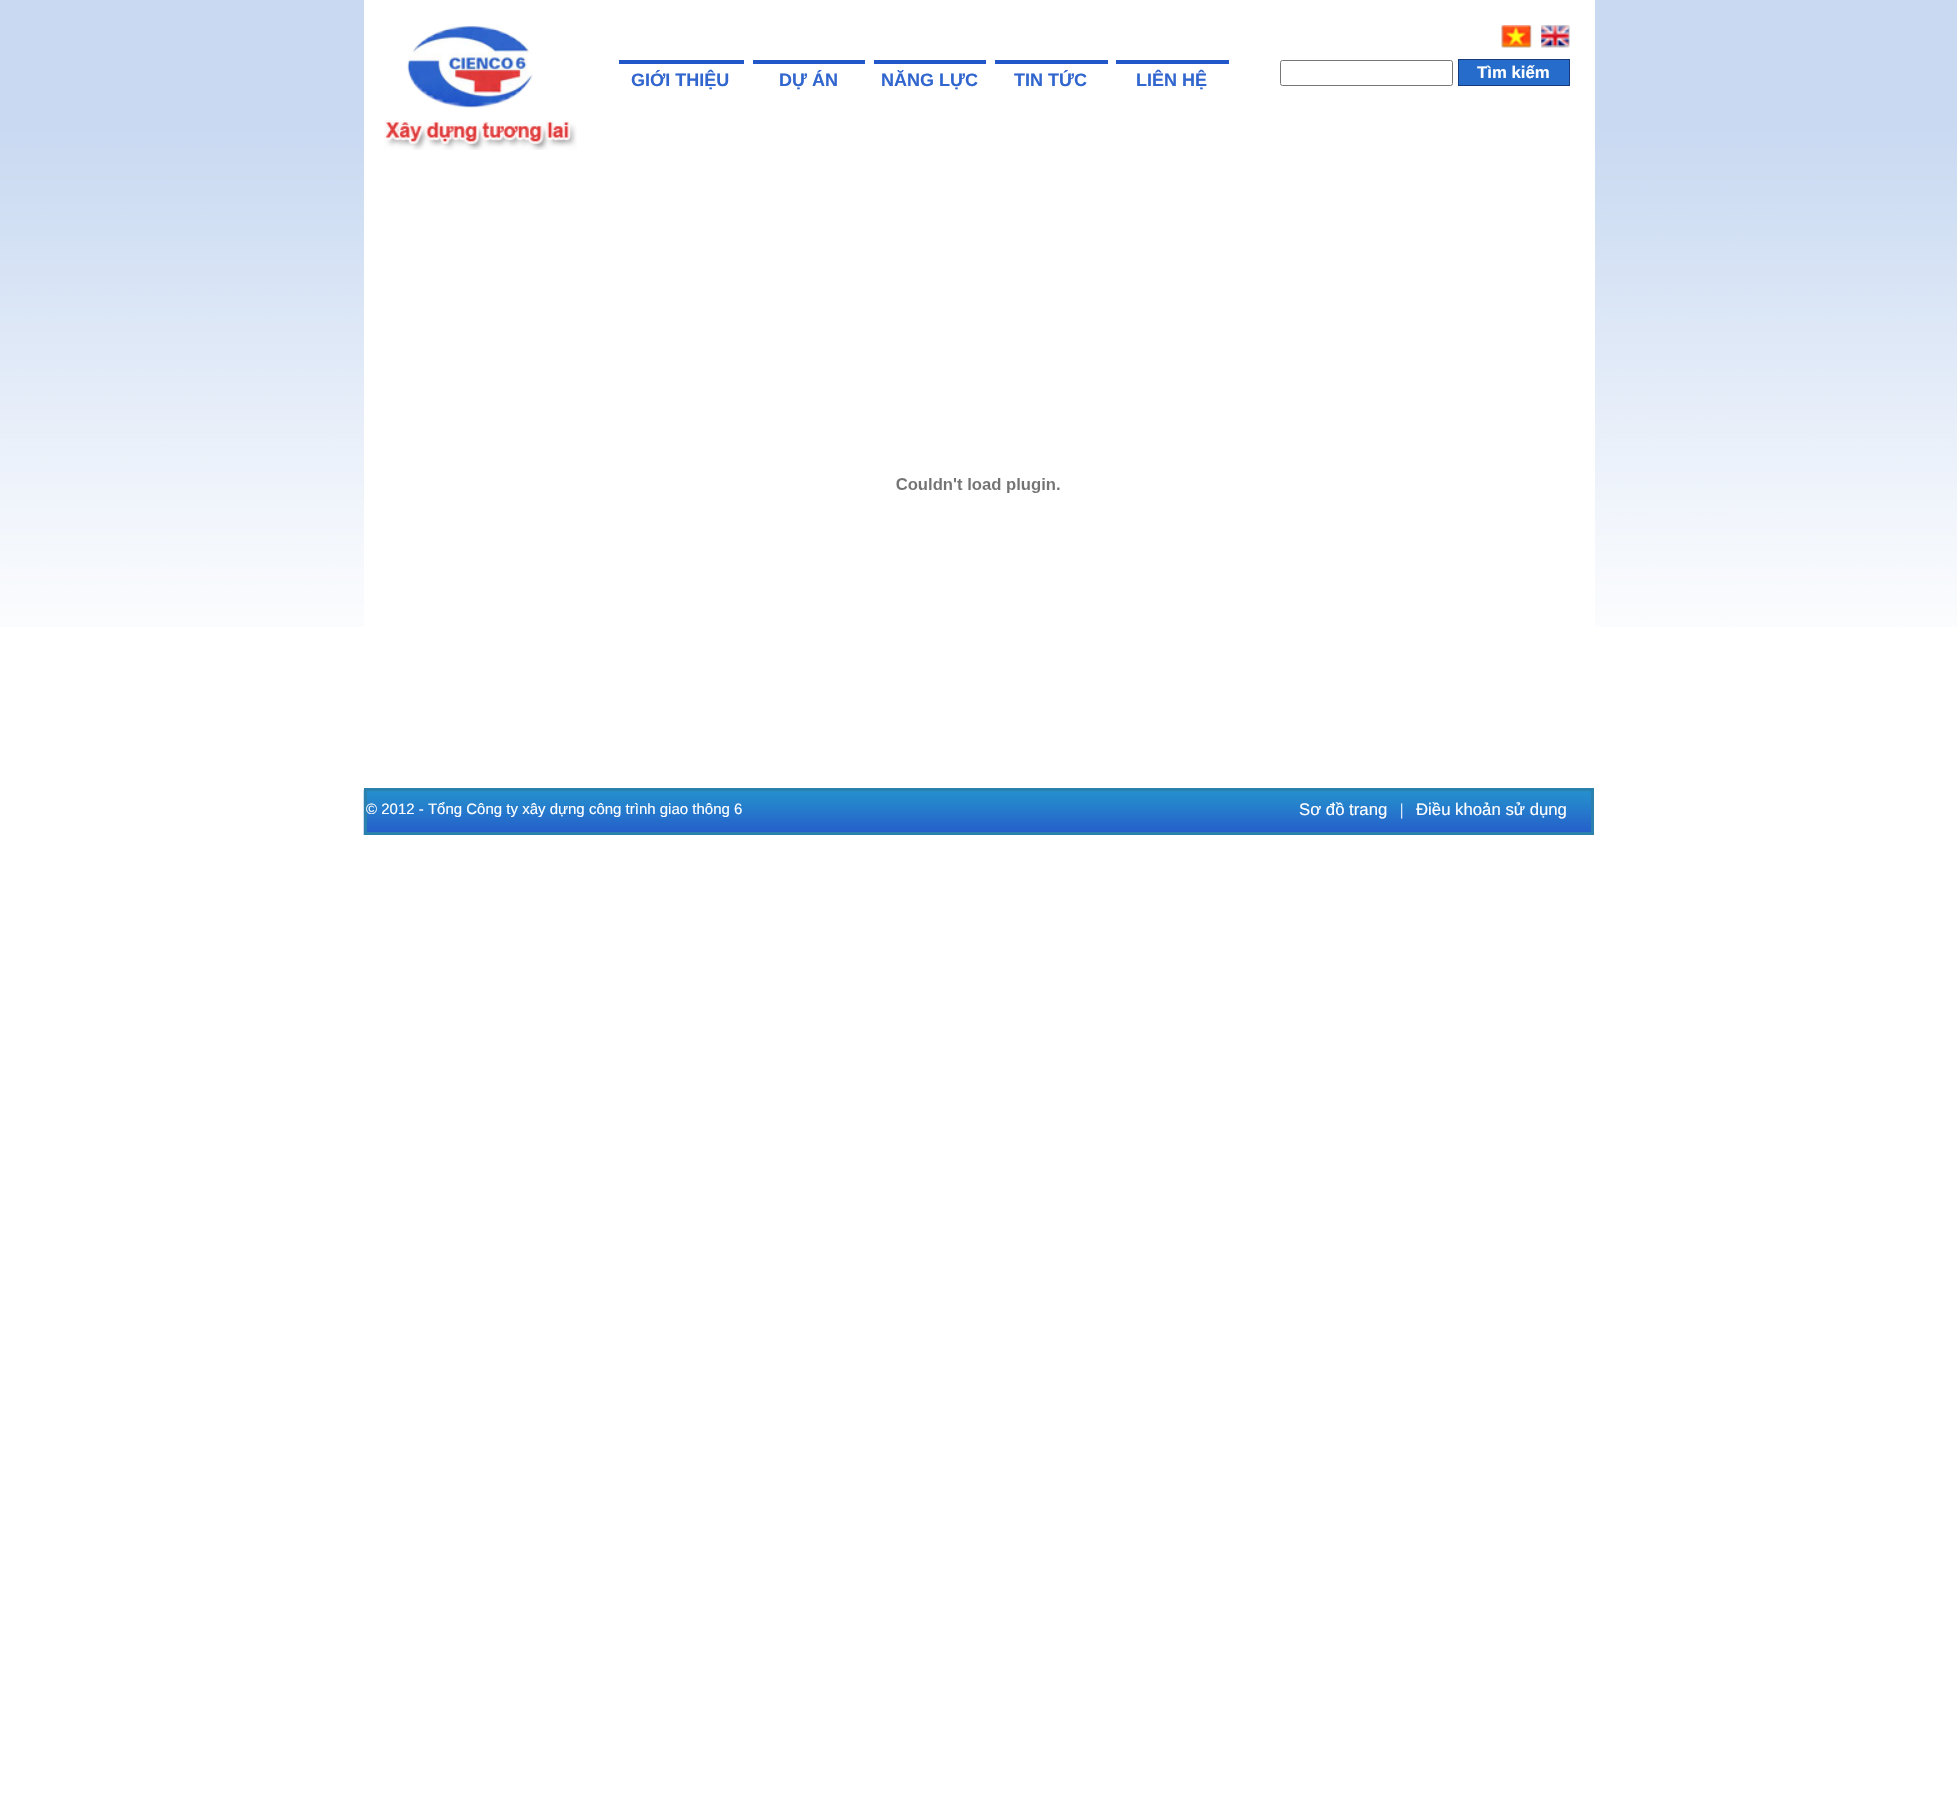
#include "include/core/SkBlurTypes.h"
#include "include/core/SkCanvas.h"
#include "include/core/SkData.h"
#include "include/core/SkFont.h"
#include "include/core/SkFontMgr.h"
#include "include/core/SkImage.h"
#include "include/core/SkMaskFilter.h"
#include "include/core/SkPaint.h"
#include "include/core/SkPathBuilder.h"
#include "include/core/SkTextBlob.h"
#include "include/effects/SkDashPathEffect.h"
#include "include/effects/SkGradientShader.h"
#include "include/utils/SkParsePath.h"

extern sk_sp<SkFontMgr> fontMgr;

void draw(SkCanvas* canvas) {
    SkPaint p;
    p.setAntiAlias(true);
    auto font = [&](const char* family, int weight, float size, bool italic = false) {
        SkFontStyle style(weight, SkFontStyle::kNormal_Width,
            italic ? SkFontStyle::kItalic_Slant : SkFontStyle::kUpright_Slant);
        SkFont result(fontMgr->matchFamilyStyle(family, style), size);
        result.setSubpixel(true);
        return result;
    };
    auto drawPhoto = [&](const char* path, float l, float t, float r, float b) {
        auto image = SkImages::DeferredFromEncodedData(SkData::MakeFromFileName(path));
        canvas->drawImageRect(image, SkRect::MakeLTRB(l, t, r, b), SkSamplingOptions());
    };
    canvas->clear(0xFFFFFFFF);
    drawPhoto("media/1.png", 0, 0, 1957, 627);
    p.setColor(0xFFFFFFFF);
    canvas->drawRect(SkRect::MakeLTRB(364, 0, 1595, 627), p);
    drawPhoto("media/2.png", 407, 25, 533, 108);
    drawPhoto("media/3.png", 384, 120, 577, 150);
    p.setColor(0xFF2257CA);
    canvas->drawRect(SkRect::MakeLTRB(619, 60, 744, 64), p);
    auto font1 = font("Liberation Sans", 700, 18);
    p.setColor(0xFF3166CE);
    canvas->drawString("GIỚI THIỆU", 631, 86, font1, p);
    p.setColor(0xFF2257CA);
    canvas->drawRect(SkRect::MakeLTRB(753, 60, 865, 64), p);
    p.setColor(0xFF3166CE);
    canvas->drawString("DỰ ÁN", 779, 86, font1, p);
    p.setColor(0xFF2257CA);
    canvas->drawRect(SkRect::MakeLTRB(874, 60, 986, 64), p);
    p.setColor(0xFF3166CE);
    canvas->drawString("NĂNG LỰC", 881, 86, font1, p);
    p.setColor(0xFF2257CA);
    canvas->drawRect(SkRect::MakeLTRB(995, 60, 1108, 64), p);
    p.setColor(0xFF3166CE);
    canvas->drawString("TIN TỨC", 1014, 86, font1, p);
    p.setColor(0xFF2257CA);
    canvas->drawRect(SkRect::MakeLTRB(1116, 60, 1229, 64), p);
    p.setColor(0xFF3166CE);
    canvas->drawString("LIÊN HỆ", 1136, 86, font1, p);
    drawPhoto("media/4.png", 1501, 25, 1532, 48);
    drawPhoto("media/5.png", 1541, 25, 1570, 48);
    p.setStyle(SkPaint::kStroke_Style);
    p.setStrokeWidth(1);
    p.setColor(0xFF767676);
    canvas->drawRoundRect(SkRect::MakeLTRB(1280.5f, 60.5f, 1452.5f, 85.5f), 2, 2, p);
    p.setStyle(SkPaint::kFill_Style);
    p.setColor(0xFF256CCB);
    canvas->drawRect(SkRect::MakeLTRB(1458.5f, 59.5f, 1569.5f, 85.5f), p);
    p.setStyle(SkPaint::kStroke_Style);
    p.setColor(0xFF183A7D);
    canvas->drawRect(SkRect::MakeLTRB(1458.5f, 59.5f, 1569.5f, 85.5f), p);
    auto font2 = font("Liberation Sans", 700, 16.75f);
    p.setStyle(SkPaint::kFill_Style);
    p.setColor(0xFFFFFFFF);
    canvas->drawString("Tìm kiếm", 1477, 78, font2, p);
    drawPhoto("media/6.png", 896, 478, 1060, 493);
    drawPhoto("media/7.png", 363, 790, 1591, 835);
    p.setStyle(SkPaint::kStroke_Style);
    p.setStrokeWidth(3);
    p.setColor(0xFF2A81AE);
    canvas->drawRect(SkRect::MakeLTRB(365.5f, 789.5f, 1592.5f, 833.5f), p);
    auto font3 = font("Liberation Sans", 400, 15);
    p.setStyle(SkPaint::kFill_Style);
    p.setColor(0xFFFFFFFF);
    canvas->drawString("© 2012 - Tổng Công ty xây dựng công trình giao thông 6", 366, 814, font3, p);
    auto font4 = font("Liberation Sans", 400, 16.75f);
    canvas->drawString("Sơ đồ trang", 1299, 815, font4, p);
    auto font5 = font("Liberation Serif", 400, 16.75f);
    canvas->drawString("|", 1400, 815, font5, p);
    canvas->drawString("Điều khoản sử dụng", 1416, 815, font4, p);
}
